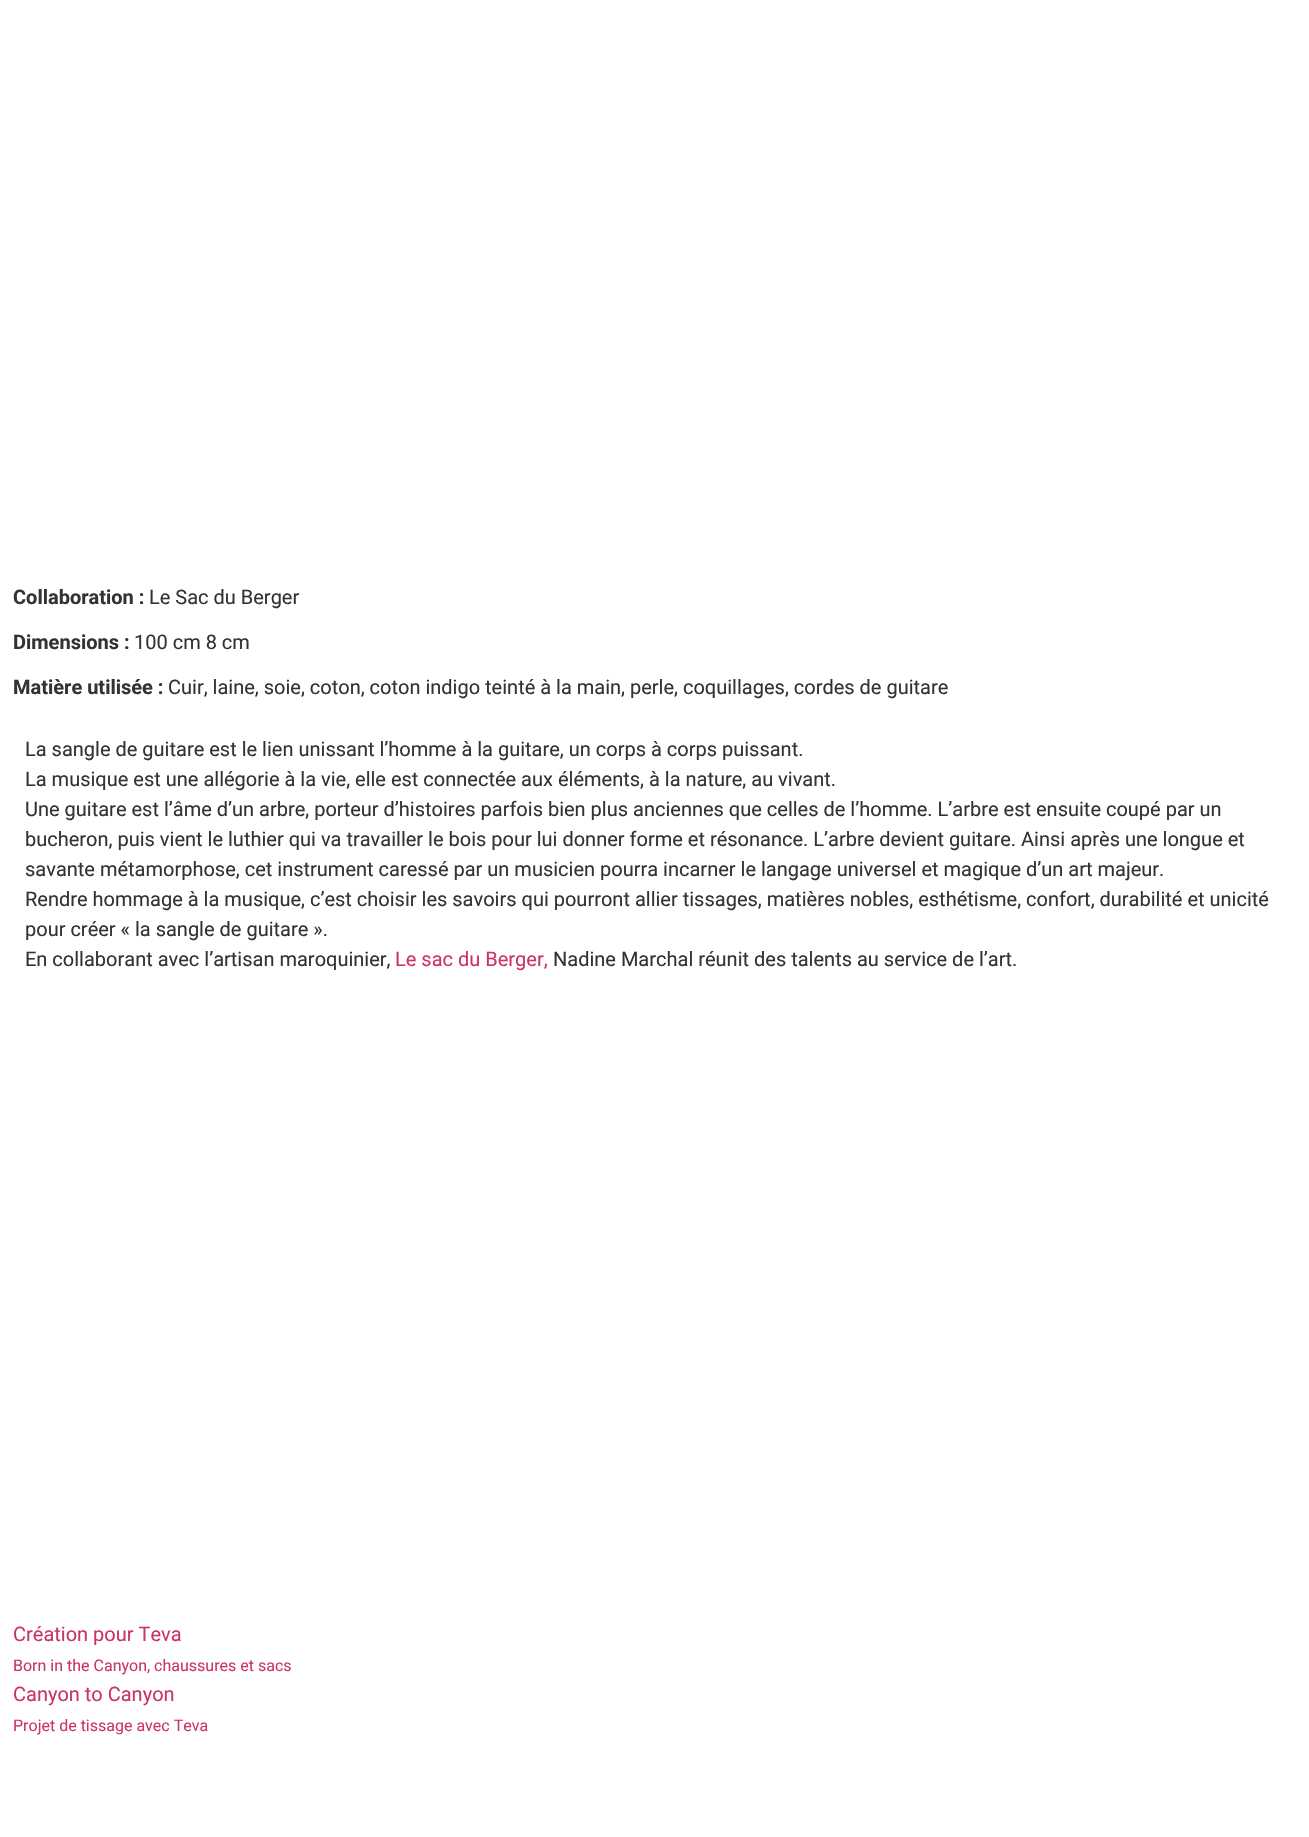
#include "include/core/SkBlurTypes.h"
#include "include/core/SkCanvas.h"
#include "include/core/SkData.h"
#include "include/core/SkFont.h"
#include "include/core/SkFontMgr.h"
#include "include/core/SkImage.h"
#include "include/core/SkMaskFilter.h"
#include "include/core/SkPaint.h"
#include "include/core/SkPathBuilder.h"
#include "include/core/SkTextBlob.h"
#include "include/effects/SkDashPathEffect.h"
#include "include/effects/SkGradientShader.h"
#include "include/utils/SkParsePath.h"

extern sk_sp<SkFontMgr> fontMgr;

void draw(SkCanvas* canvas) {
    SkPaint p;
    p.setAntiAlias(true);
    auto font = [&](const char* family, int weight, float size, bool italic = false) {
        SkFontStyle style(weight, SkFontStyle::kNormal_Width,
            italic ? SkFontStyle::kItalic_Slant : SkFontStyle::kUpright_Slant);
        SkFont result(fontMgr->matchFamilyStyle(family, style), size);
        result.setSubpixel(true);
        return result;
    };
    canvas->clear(0xFFFFFFFF);
    auto font1 = font("Roboto", 700, 20);
    p.setColor(0xFF333333);
    canvas->drawString("Collaboration :", 13, 604, font1, p);
    auto font2 = font("Roboto", 400, 20);
    canvas->drawString("Le Sac du Berger", 149, 604, font2, p);
    canvas->drawString("Dimensions :", 13, 649, font1, p);
    canvas->drawString("100 cm 8 cm", 134, 649, font2, p);
    canvas->drawString("Matière utilisée :", 13, 694, font1, p);
    {
        const struct { const char* s; float x, y; } items[] = {
            {"Cuir, laine, soie, coton, coton indigo teinté à la main, perle, coquillages, cordes de guitare", 168, 694},
            {"La sangle de guitare est le lien unissant l’homme à la guitare, un corps à corps puissant.", 25, 756},
            {"La musique est une allégorie à la vie, elle est connectée aux éléments, à la nature, au vivant.", 25, 786},
            {"Une guitare est l’âme d’un arbre, porteur d’histoires parfois bien plus anciennes que celles de l’homme. L’arbre est ensuite coupé par un", 25, 816},
            {"bucheron, puis vient le luthier qui va travailler le bois pour lui donner forme et résonance. L’arbre devient guitare. Ainsi après une longue et", 25, 846},
            {"savante métamorphose, cet instrument caressé par un musicien pourra incarner le langage universel et magique d’un art majeur.", 25, 876},
            {"Rendre hommage à la musique, c’est choisir les savoirs qui pourront allier tissages, matières nobles, esthétisme, confort, durabilité et unicité", 25, 906},
            {"pour créer « la sangle de guitare ».", 25, 936},
            {"En collaborant avec l’artisan maroquinier,", 25, 966},
        };
        for (auto [s, x, y] : items) {
            canvas->drawString(s, x, y, font2, p);
        }
    }
    p.setColor(0xFFCC3366);
    canvas->drawString("Le sac du Berger,", 395, 966, font2, p);
    p.setColor(0xFF333333);
    canvas->drawString("Nadine Marchal réunit des talents au service de l’art.", 553, 966, font2, p);
    p.setColor(0xFFCC3366);
    canvas->drawString("Création pour Teva", 13, 1641, font2, p);
    auto font3 = font("Roboto", 400, 16);
    canvas->drawString("Born in the Canyon, chaussures et sacs", 13, 1671, font3, p);
    canvas->drawString("Canyon to Canyon", 13, 1701, font2, p);
    canvas->drawString("Projet de tissage avec Teva", 13, 1731, font3, p);
}
